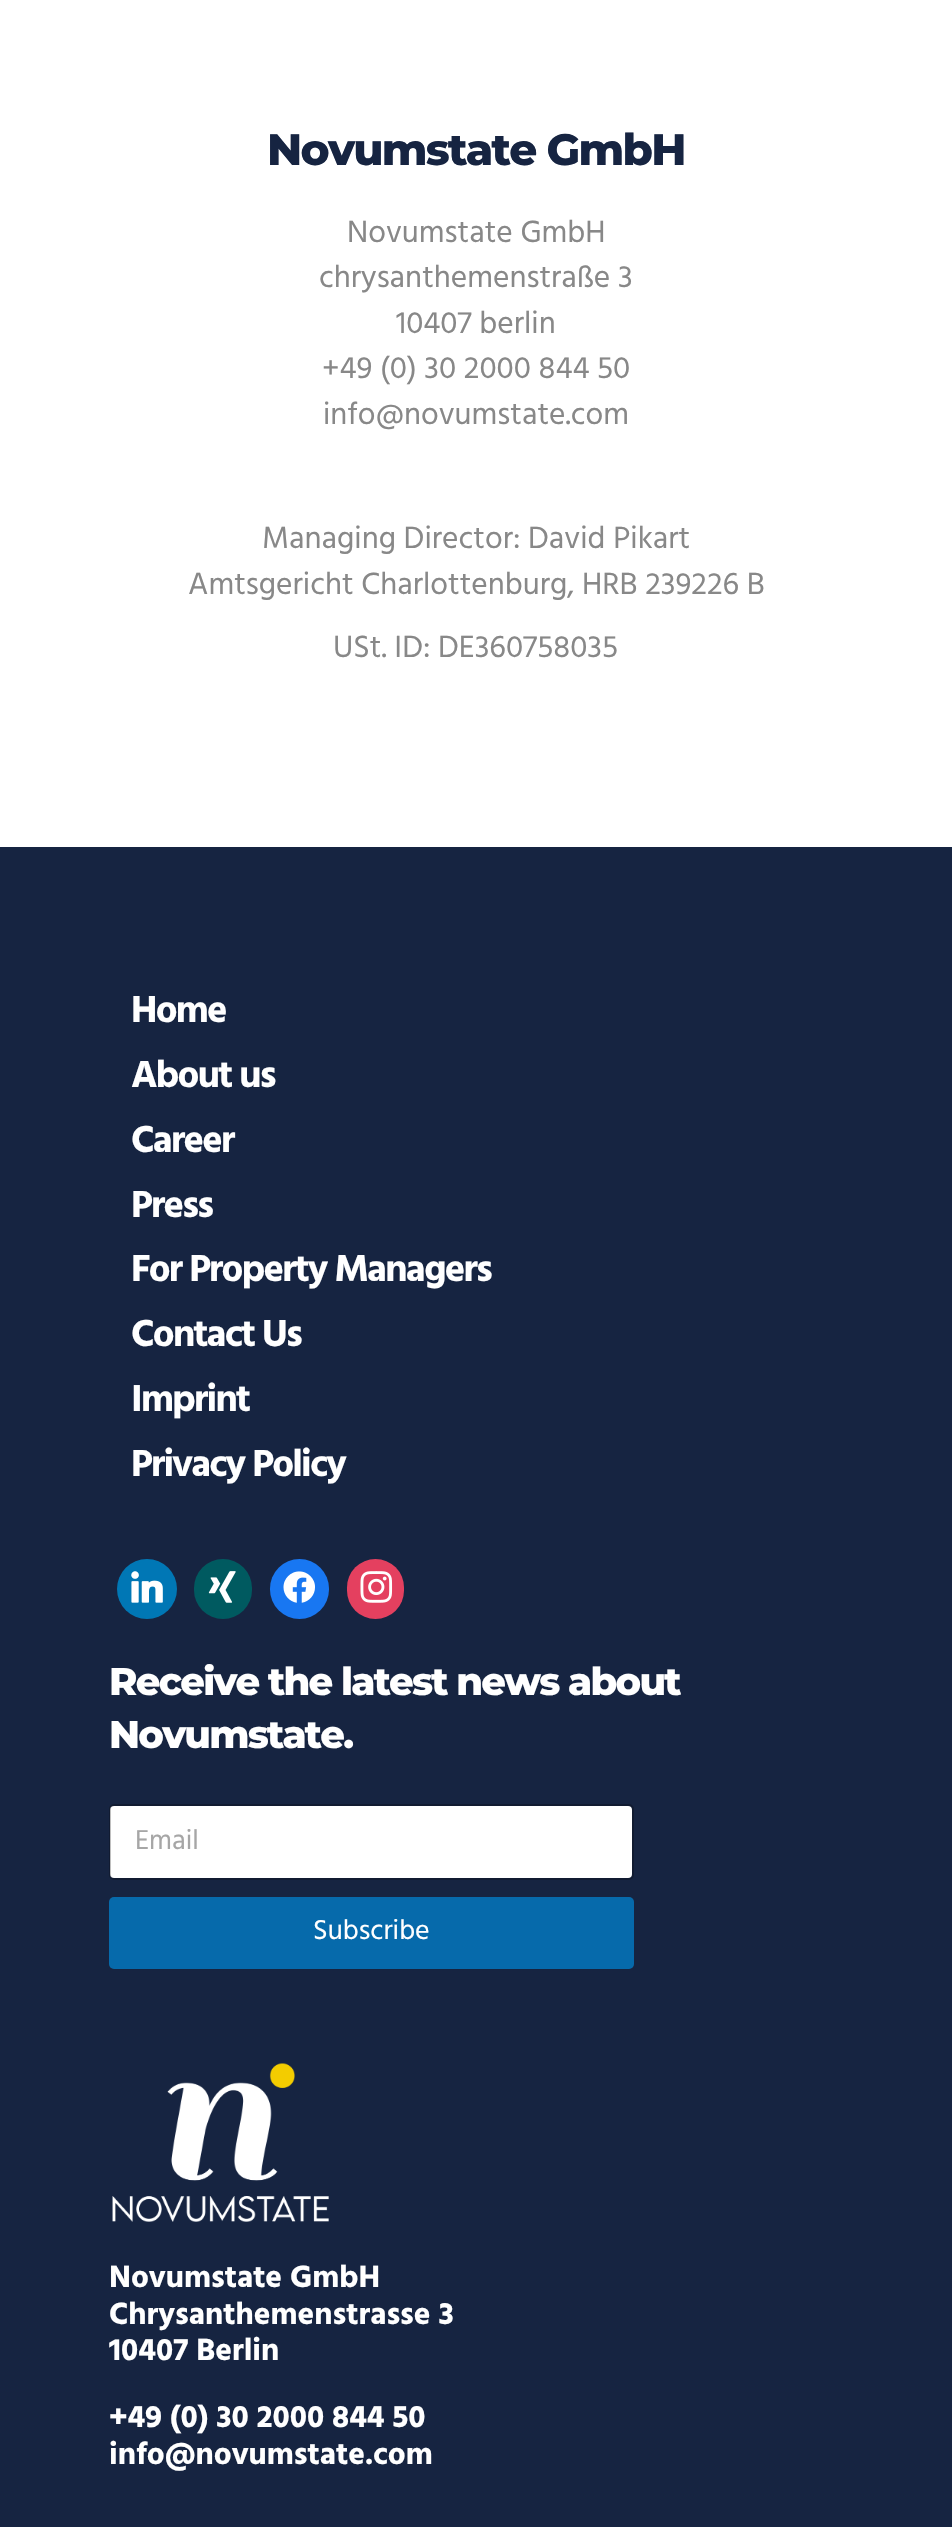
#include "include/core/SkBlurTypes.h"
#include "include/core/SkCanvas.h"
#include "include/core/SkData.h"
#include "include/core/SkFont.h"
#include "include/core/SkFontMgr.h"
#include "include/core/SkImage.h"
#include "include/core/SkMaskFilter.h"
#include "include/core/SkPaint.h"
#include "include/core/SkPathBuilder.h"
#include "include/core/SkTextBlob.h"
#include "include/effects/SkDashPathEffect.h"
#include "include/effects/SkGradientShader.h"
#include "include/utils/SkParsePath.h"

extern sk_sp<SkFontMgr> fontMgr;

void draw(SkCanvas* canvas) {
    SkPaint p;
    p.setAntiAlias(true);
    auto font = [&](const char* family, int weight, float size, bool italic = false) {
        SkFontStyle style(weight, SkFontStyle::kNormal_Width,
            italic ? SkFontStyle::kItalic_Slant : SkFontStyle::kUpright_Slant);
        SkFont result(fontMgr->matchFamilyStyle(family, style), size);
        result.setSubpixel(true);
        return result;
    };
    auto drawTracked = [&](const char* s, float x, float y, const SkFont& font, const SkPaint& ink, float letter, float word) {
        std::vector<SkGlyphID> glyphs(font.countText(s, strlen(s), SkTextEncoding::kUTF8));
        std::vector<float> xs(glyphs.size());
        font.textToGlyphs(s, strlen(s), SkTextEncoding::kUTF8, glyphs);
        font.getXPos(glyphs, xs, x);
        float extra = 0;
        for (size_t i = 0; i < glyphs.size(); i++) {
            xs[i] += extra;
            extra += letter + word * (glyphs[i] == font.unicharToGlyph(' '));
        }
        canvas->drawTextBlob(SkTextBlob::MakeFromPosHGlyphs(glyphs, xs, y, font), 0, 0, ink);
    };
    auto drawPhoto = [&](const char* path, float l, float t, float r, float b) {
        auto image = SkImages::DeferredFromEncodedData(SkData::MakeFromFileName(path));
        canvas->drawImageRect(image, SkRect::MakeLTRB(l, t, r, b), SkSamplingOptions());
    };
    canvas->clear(0xFFFFFFFF);
    auto font1 = font("Montserrat", 100, 43.75f);
    p.setColor(0xFF162441);
    drawTracked("Novumstate GmbH", 267, 165, font1, p, -1.75f, 0);
    auto font2 = font("Hind", 400, 31.5f);
    p.setColor(0xFF888888);
    {
        const struct { const char* s; float x, y; } items[] = {
            {"Novumstate GmbH", 347, 242},
            {"chrysanthemenstraße 3", 319, 287},
            {"10407 berlin", 396, 333},
            {"+49 (0) 30 2000 844 50", 322, 378},
            {"info@novumstate.com", 323, 424},
            {"Managing Director: David Pikart", 262, 548},
            {"Amtsgericht Charlottenburg, HRB 239226 B", 188, 594},
            {"USt. ID: DE360758035", 333, 657},
        };
        for (auto [s, x, y] : items) {
            canvas->drawString(s, x, y, font2, p);
        }
    }
    p.setColor(0xFF162441);
    canvas->drawRect(SkRect::MakeLTRB(0, 847, 952, 2527), p);
    auto font3 = font("Hind", 700, 38.5f);
    p.setColor(0xFFFFFFFF);
    {
        const struct { const char* s; float x, y; } items[] = {
            {"Home", 131, 1022},
            {"About us", 131, 1087},
            {"Career", 131, 1152},
            {"Press", 131, 1217},
            {"For Property Managers", 131, 1281},
            {"Contact Us", 131, 1346},
            {"Imprint", 131, 1411},
            {"Privacy Policy", 131, 1476},
        };
        for (auto [s, x, y] : items) {
            drawTracked(s, x, y, font3, p, -1.75f, 0);
        }
    }
    p.setColor(0xFF0077B5);
    canvas->drawCircle(147, 1589, 30, p);
    drawPhoto("media/1.png", 131, 1571, 163, 1603);
    p.setColor(0xFF005A60);
    canvas->drawRoundRect(SkRect::MakeLTRB(194, 1559, 252, 1619), 29, 29, p);
    drawPhoto("media/2.png", 208, 1571, 236, 1603);
    p.setColor(0xFF1877F2);
    canvas->drawRoundRect(SkRect::MakeLTRB(270, 1559, 329, 1619), 29.5f, 29.5f, p);
    drawPhoto("media/3.png", 283, 1571, 315, 1603);
    p.setColor(0xFFE4405F);
    canvas->drawRoundRect(SkRect::MakeLTRB(347, 1559, 404, 1619), 28.5f, 28.5f, p);
    drawPhoto("media/4.png", 360, 1571, 393, 1603);
    auto font4 = font("Montserrat", 100, 38.5f);
    p.setColor(0xFFFFFFFF);
    drawTracked("Receive the latest news about", 109, 1695, font4, p, -1.75f, 0);
    drawTracked("Novumstate.", 109, 1748, font4, p, -1.75f, 0);
    canvas->drawRoundRect(SkRect::MakeLTRB(110, 1806, 632, 1878), 4, 4, p);
    p.setStyle(SkPaint::kStroke_Style);
    p.setStrokeWidth(2);
    p.setColor(0x40000000);
    canvas->drawRoundRect(SkRect::MakeLTRB(110, 1805, 633, 1879), 4, 4, p);
    auto font5 = font("Hind", 400, 28);
    p.setStyle(SkPaint::kFill_Style);
    p.setColor(0xFFA6A6A6);
    canvas->drawString("Email", 135, 1849, font5, p);
    p.setColor(0xFF066AAB);
    canvas->drawRoundRect(SkRect::MakeLTRB(109, 1897, 634, 1969), 5, 5, p);
    p.setColor(0xFFFFFFFF);
    canvas->drawString("Subscribe", 313, 1939, font5, p);
    drawPhoto("media/5.png", 112, 2063, 329, 2222);
    auto font6 = font("Hind", 700, 31.5f);
    {
        const struct { const char* s; float x, y; } items[] = {
            {"Novumstate GmbH", 109, 2287},
            {"Chrysanthemenstrasse 3", 109, 2324},
            {"10407 Berlin", 109, 2360},
            {"+49 (0) 30 2000 844 50", 109, 2427},
            {"info@novumstate.com", 109, 2464},
        };
        for (auto [s, x, y] : items) {
            canvas->drawString(s, x, y, font6, p);
        }
    }
}
